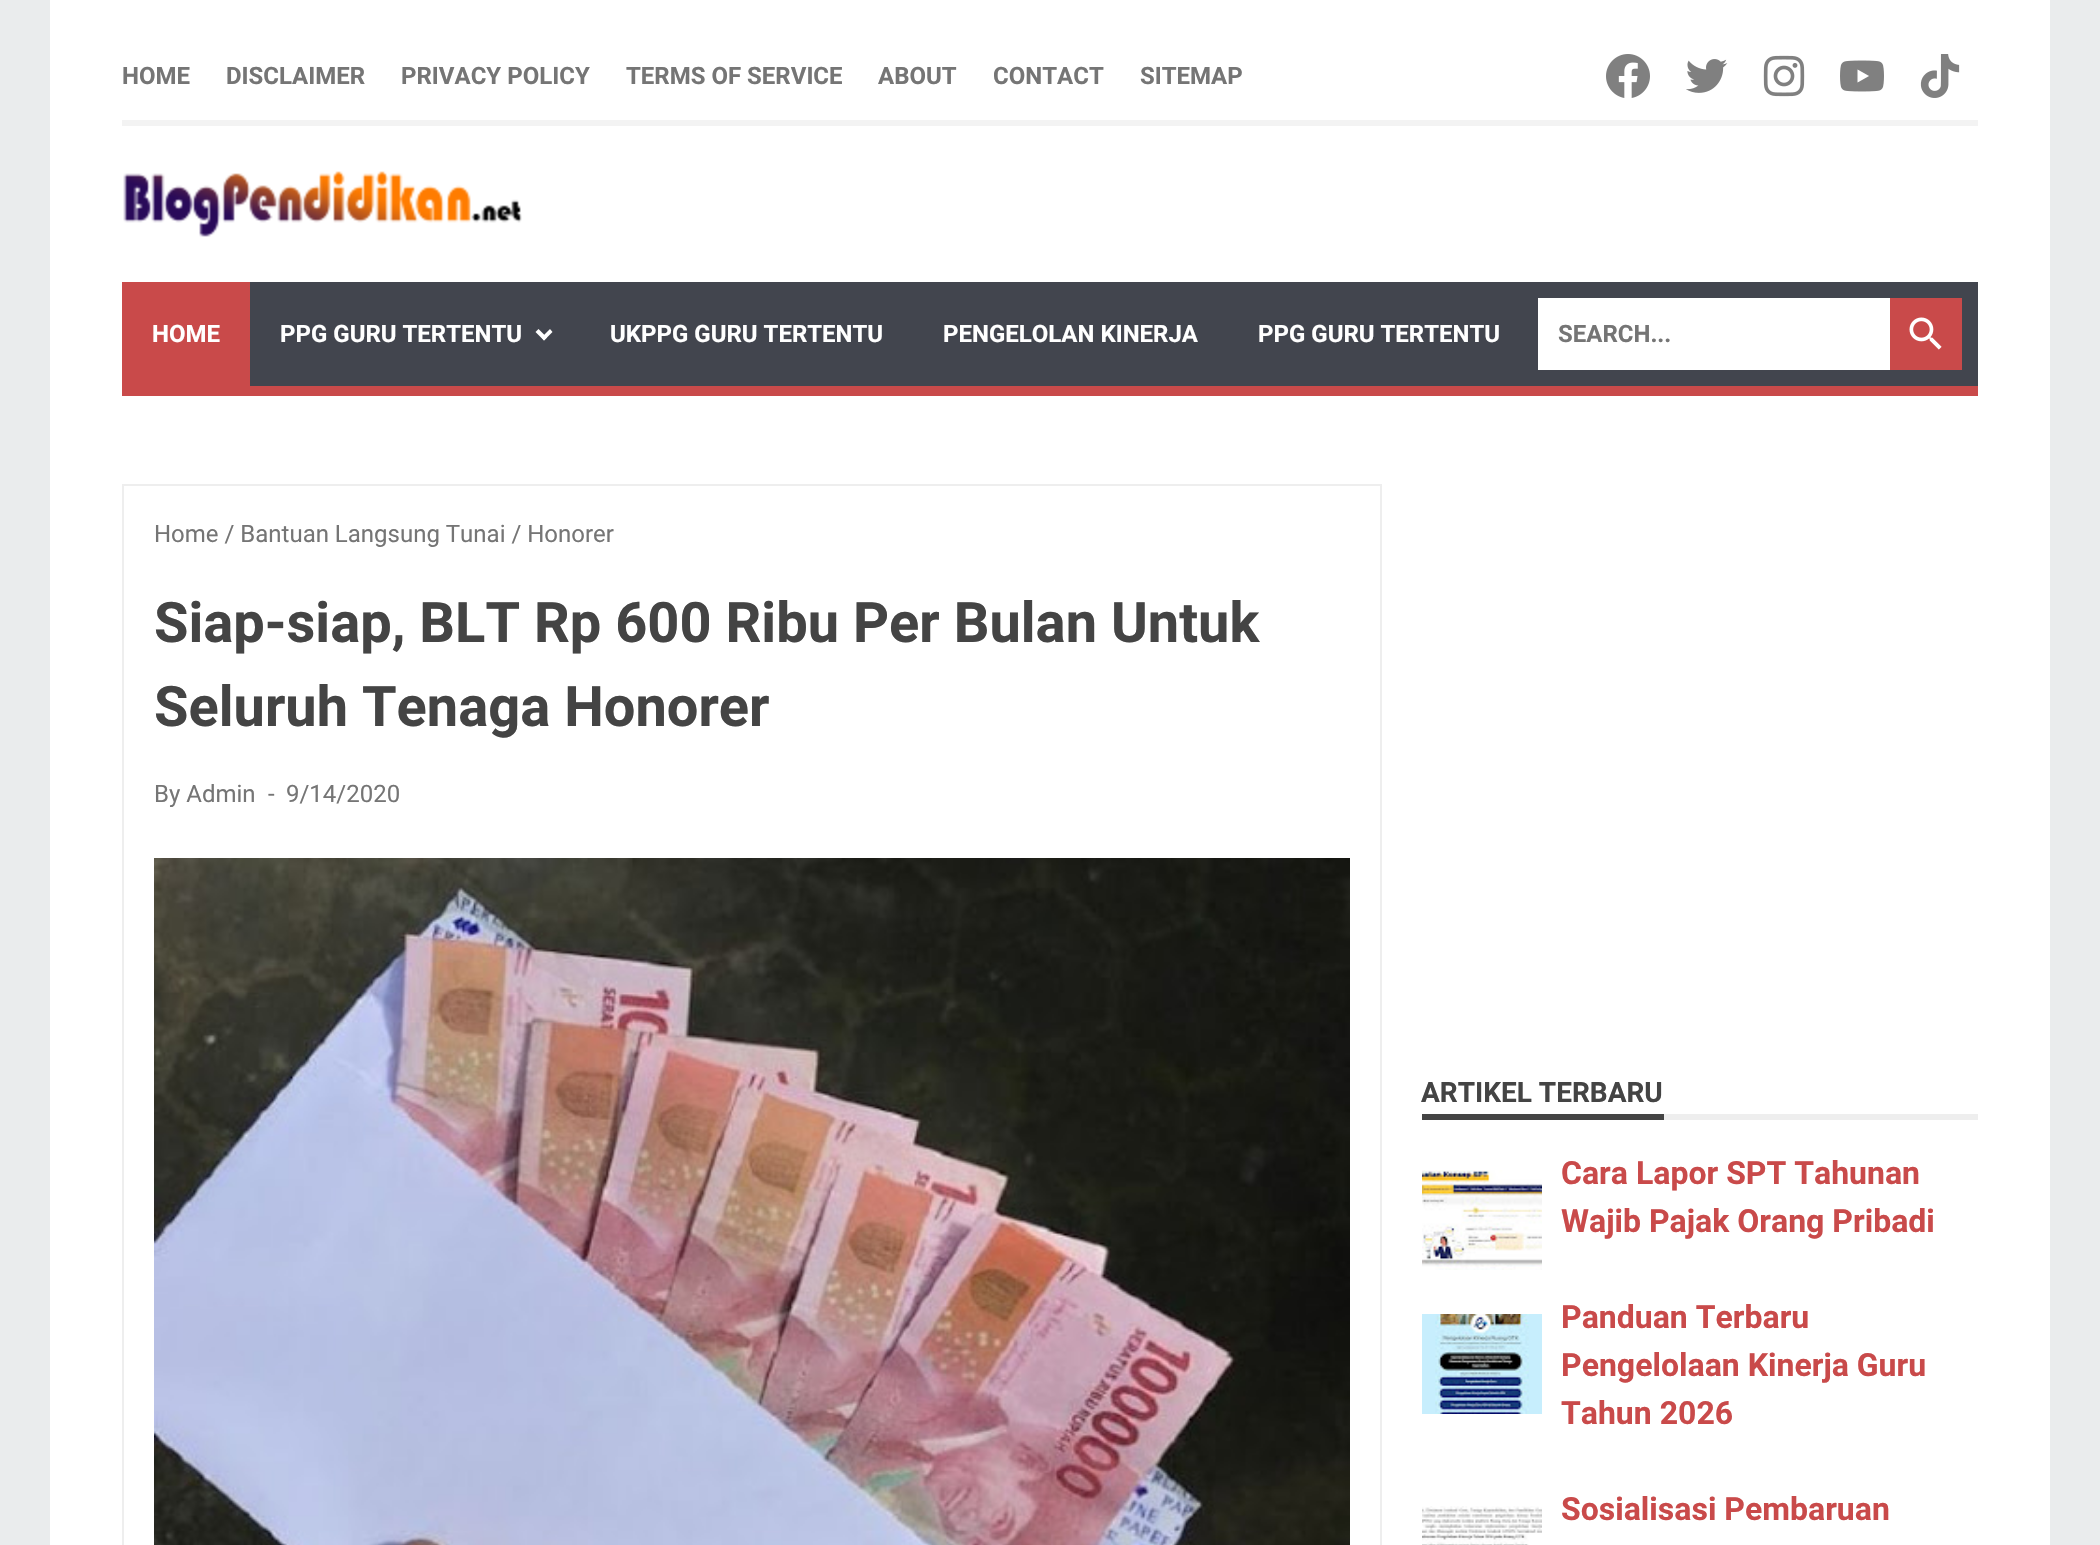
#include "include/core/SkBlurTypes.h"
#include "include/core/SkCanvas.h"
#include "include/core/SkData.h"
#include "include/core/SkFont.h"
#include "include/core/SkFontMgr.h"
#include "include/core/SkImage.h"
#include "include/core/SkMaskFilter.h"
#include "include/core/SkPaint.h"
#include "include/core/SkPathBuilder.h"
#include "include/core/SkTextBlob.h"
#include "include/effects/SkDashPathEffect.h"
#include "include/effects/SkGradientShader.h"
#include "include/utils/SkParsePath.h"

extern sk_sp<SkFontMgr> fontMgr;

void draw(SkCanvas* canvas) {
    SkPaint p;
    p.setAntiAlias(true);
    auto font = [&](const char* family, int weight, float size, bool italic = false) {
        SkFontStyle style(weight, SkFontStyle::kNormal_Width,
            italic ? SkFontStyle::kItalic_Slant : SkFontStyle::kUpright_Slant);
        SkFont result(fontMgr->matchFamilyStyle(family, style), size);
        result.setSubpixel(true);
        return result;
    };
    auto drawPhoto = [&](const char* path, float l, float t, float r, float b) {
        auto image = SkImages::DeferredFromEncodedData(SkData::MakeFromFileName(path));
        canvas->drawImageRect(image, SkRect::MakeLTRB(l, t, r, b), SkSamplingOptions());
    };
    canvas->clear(0xFFEAECED);
    p.setColor(0xFFFFFFFF);
    canvas->drawRect(SkRect::MakeLTRB(50, 0, 2050, 1545), p);
    p.setColor(0xFFF3F3F3);
    canvas->drawRect(SkRect::MakeLTRB(122, 120, 1978, 126), p);
    auto font1 = font("Roboto", 700, 24);
    p.setColor(0xFF757575);
    {
        const struct { const char* s; float x, y; } items[] = {
            {"HOME", 122, 84},
            {"DISCLAIMER", 226, 84},
            {"PRIVACY POLICY", 401, 84},
            {"TERMS OF SERVICE", 626, 84},
            {"ABOUT", 878, 84},
            {"CONTACT", 993, 84},
            {"SITEMAP", 1140, 84},
        };
        for (auto [s, x, y] : items) {
            canvas->drawString(s, x, y, font1, p);
        }
    }
    drawPhoto("media/1.png", 1606, 54, 1650, 98);
    drawPhoto("media/2.png", 1686, 59, 1728, 93);
    drawPhoto("media/3.png", 1763, 55, 1805, 97);
    drawPhoto("media/4.png", 1840, 60, 1884, 92);
    drawPhoto("media/5.png", 1920, 54, 1960, 98);
    drawPhoto("media/6.png", 123, 171, 522, 237);
    p.setColor(0xFF42454E);
    canvas->drawRect(SkRect::MakeLTRB(250, 282, 1978, 386), p);
    p.setColor(0xFFC94A4A);
    canvas->drawRect(SkRect::MakeLTRB(122, 282, 250, 386), p);
    p.setColor(0xFFFFFFFF);
    canvas->drawString("HOME", 152, 342, font1, p);
    canvas->drawString("PPG GURU TERTENTU", 280, 342, font1, p);
    canvas->drawPath(SkPathBuilder().moveTo(541.5f, 337.5f).lineTo(550, 329).lineTo(552.5f, 332).lineTo(544, 340.5f).close().detach(), p);
    canvas->drawPath(SkPathBuilder().moveTo(535.5f, 332).lineTo(538.5f, 329).lineTo(547, 337.5f).lineTo(544, 340.5f).close().detach(), p);
    {
        const struct { const char* s; float x, y; } items[] = {
            {"UKPPG GURU TERTENTU", 610, 342},
            {"PENGELOLAN KINERJA", 943, 342},
            {"PPG GURU TERTENTU", 1258, 342},
        };
        for (auto [s, x, y] : items) {
            canvas->drawString(s, x, y, font1, p);
        }
    }
    canvas->drawRect(SkRect::MakeLTRB(1538, 298, 1890, 370), p);
    p.setColor(0xFF757575);
    canvas->drawString("SEARCH...", 1558, 342, font1, p);
    p.setColor(0xFFC94A4A);
    canvas->drawRect(SkRect::MakeLTRB(1890, 298, 1962, 370), p);
    drawPhoto("media/7.png", 1909, 317, 1942, 350);
    canvas->drawRect(SkRect::MakeLTRB(122, 386, 1978, 396), p);
    p.setStyle(SkPaint::kStroke_Style);
    p.setStrokeWidth(2);
    p.setColor(0xFFEEEEEE);
    canvas->drawRect(SkRect::MakeLTRB(123, 485, 1381, 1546), p);
    auto font2 = font("Roboto", 400, 24);
    p.setStyle(SkPaint::kFill_Style);
    p.setColor(0xFF757575);
    canvas->drawString("Home / Bantuan Langsung Tunai / Honorer", 154, 542, font2, p);
    auto font3 = font("Roboto", 700, 56);
    p.setColor(0xFF444444);
    canvas->drawString("Siap-siap, BLT Rp 600 Ribu Per Bulan Untuk", 154, 642, font3, p);
    canvas->drawString("Seluruh Tenaga Honorer", 154, 726, font3, p);
    p.setColor(0xFF757575);
    {
        const struct { const char* s; float x, y; } items[] = {
            {"By Admin", 154, 802},
            {"-", 268, 802},
            {"9/14/2020", 286, 802},
        };
        for (auto [s, x, y] : items) {
            canvas->drawString(s, x, y, font2, p);
        }
    }
    drawPhoto("media/8.png", 154, 858, 1350, 1545);
    p.setColor(0xFFEEEEEE);
    canvas->drawRect(SkRect::MakeLTRB(1664, 1114, 1978, 1120), p);
    p.setColor(0xFF444444);
    canvas->drawRect(SkRect::MakeLTRB(1422, 1114, 1664, 1120), p);
    auto font4 = font("Roboto", 700, 28);
    canvas->drawString("ARTIKEL TERBARU", 1421, 1102, font4, p);
    drawPhoto("media/9.png", 1422, 1170, 1542, 1270);
    auto font5 = font("Roboto", 700, 32);
    p.setColor(0xFFC94A4A);
    canvas->drawString("Cara Lapor SPT Tahunan", 1561, 1184, font5, p);
    canvas->drawString("Wajib Pajak Orang Pribadi", 1561, 1232, font5, p);
    drawPhoto("media/10.png", 1422, 1314, 1542, 1414);
    {
        const struct { const char* s; float x, y; } items[] = {
            {"Panduan Terbaru", 1561, 1328},
            {"Pengelolaan Kinerja Guru", 1561, 1376},
            {"Tahun 2026", 1561, 1424},
        };
        for (auto [s, x, y] : items) {
            canvas->drawString(s, x, y, font5, p);
        }
    }
    drawPhoto("media/11.png", 1422, 1506, 1542, 1545);
    canvas->drawString("Sosialisasi Pembaruan", 1561, 1520, font5, p);
}
